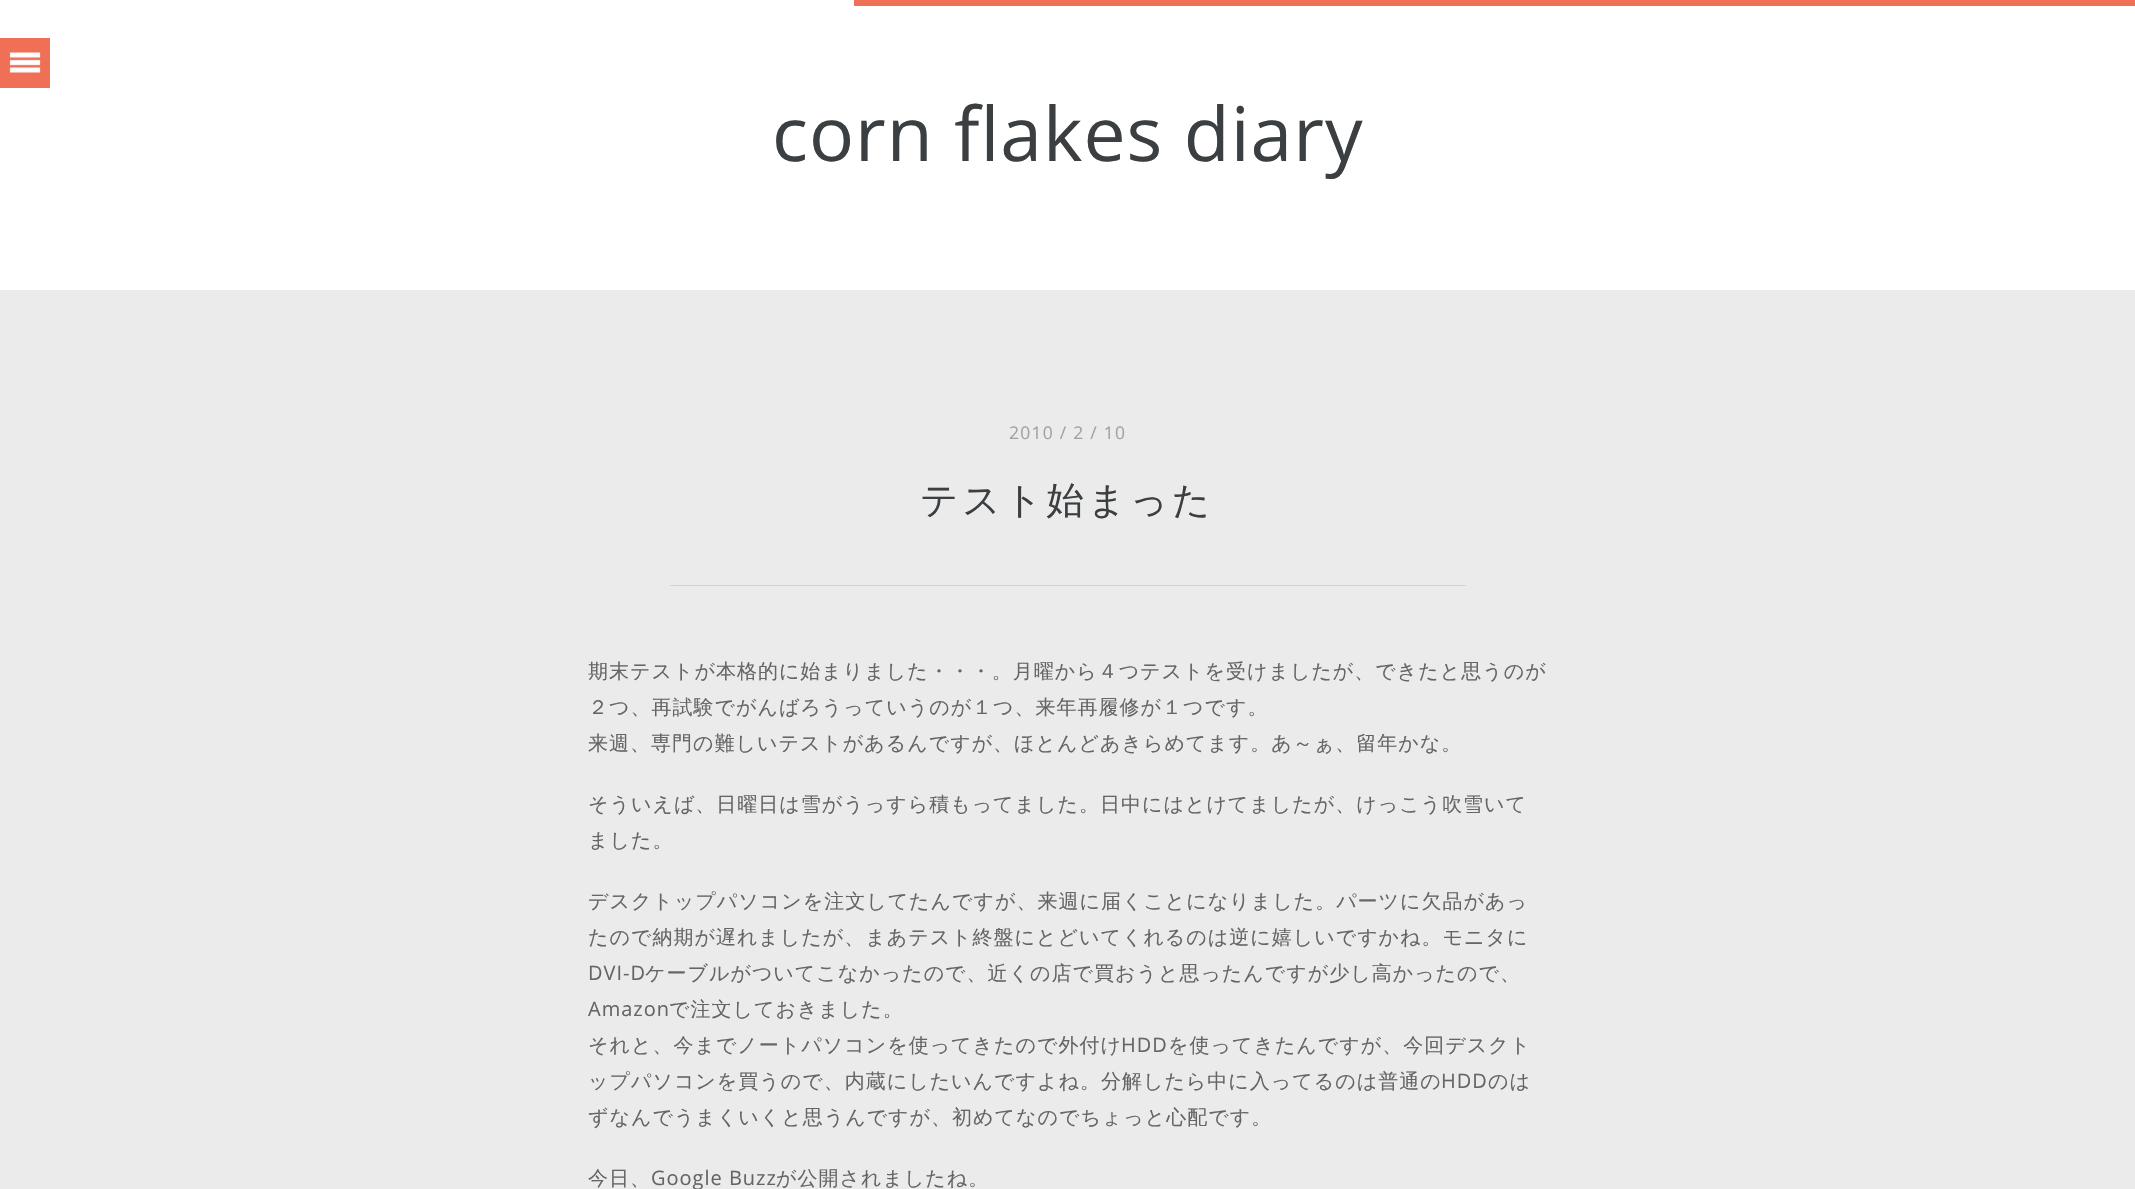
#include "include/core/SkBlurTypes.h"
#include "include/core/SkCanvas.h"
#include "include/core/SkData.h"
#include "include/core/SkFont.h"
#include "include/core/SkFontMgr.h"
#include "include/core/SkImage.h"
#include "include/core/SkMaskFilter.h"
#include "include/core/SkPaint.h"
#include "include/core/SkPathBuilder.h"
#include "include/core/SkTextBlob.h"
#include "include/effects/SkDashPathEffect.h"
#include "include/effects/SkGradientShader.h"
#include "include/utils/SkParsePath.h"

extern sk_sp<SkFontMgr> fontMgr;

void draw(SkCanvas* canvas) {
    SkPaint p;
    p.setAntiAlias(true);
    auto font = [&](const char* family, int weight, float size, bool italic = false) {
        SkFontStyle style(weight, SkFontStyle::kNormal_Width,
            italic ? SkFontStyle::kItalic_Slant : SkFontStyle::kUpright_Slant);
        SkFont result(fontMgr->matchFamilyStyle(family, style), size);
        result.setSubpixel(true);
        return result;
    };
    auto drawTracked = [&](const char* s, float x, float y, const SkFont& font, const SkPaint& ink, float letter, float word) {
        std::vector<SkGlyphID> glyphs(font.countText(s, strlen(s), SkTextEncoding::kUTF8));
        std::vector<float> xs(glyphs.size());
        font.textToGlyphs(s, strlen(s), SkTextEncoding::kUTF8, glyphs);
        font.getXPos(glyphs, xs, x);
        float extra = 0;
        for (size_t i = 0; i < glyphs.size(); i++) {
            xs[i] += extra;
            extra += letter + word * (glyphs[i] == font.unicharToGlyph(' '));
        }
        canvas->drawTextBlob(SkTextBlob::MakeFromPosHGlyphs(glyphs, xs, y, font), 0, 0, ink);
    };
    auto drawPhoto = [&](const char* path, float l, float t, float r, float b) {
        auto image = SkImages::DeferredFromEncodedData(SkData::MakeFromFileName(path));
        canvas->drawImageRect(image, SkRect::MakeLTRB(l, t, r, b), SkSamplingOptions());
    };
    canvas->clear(0xFFFFFFFF);
    p.setColor(0xFFF07057);
    canvas->drawRect(SkRect::MakeLTRB(854, 0, 2135, 6), p);
    canvas->drawRect(SkRect::MakeLTRB(0, 38, 50, 88), p);
    drawPhoto("media/1.png", 9, 52, 41, 73);
    auto font1 = font("Open Sans", 400, 75);
    p.setColor(0xFF3B3F41);
    drawTracked("corn flakes diary", 772, 161, font1, p, 1, 0);
    p.setColor(0xFFEBEBEB);
    canvas->drawRect(SkRect::MakeLTRB(0, 290, 2135, 1189), p);
    auto font2 = font("Open Sans", 400, 17.5f);
    p.setColor(0xFFA2A2A2);
    drawTracked("2010 / 2 / 10", 1009, 439, font2, p, 1.25f, 0);
    auto font3 = font("WenQuanYi Zen Hei", 500, 37.5f);
    p.setColor(0xFF3B3F41);
    drawTracked("テスト始まった", 920, 513, font3, p, 3.75f, 0);
    p.setColor(0xFFD4D4D4);
    canvas->drawRect(SkRect::MakeLTRB(670, 585, 1466, 586), p);
    auto font4 = font("WenQuanYi Zen Hei", 500, 20);
    p.setColor(0xFF656565);
    {
        const struct { const char* s; float x, y; } items[] = {
            {"期末テストが本格的に始まりました・・・。月曜から４つテストを受けましたが、できたと思うのが", 588, 678},
            {"２つ、再試験でがんばろうっていうのが１つ、来年再履修が１つです。", 588, 714},
            {"来週、専門の難しいテストがあるんですが、ほとんどあきらめてます。あ～ぁ、留年かな。", 588, 750},
            {"そういえば、日曜日は雪がうっすら積もってました。日中にはとけてましたが、けっこう吹雪いて", 588, 811},
            {"ました。", 588, 847},
            {"デスクトップパソコンを注文してたんですが、来週に届くことになりました。パーツに欠品があっ", 588, 908},
            {"たので納期が遅れましたが、まあテスト終盤にとどいてくれるのは逆に嬉しいですかね。モニタに", 588, 944},
        };
        for (auto [s, x, y] : items) {
            drawTracked(s, x, y, font4, p, 1, 0);
        }
    }
    auto font5 = font("Open Sans", 400, 20);
    drawTracked("DVI-D", 588, 980, font5, p, 1, 0);
    drawTracked("ケーブルがついてこなかったので、近くの店で買おうと思ったんですが少し高かったので、", 645, 980, font4, p, 1, 0);
    drawTracked("Amazon", 588, 1016, font5, p, 1, 0);
    drawTracked("で注文しておきました。", 669, 1016, font4, p, 1, 0);
    drawTracked("それと、今までノートパソコンを使ってきたので外付け", 588, 1052, font4, p, 1, 0);
    drawTracked("HDD", 1121, 1052, font5, p, 1, 0);
    drawTracked("を使ってきたんですが、今回デスクト", 1168, 1052, font4, p, 1, 0);
    drawTracked("ップパソコンを買うので、内蔵にしたいんですよね。分解したら中に入ってるのは普通の", 588, 1088, font4, p, 1, 0);
    drawTracked("HDD", 1441, 1088, font5, p, 1, 0);
    {
        const struct { const char* s; float x, y; } items[] = {
            {"のは", 1488, 1088},
            {"ずなんでうまくいくと思うんですが、初めてなのでちょっと心配です。", 588, 1124},
            {"今日、", 588, 1185},
        };
        for (auto [s, x, y] : items) {
            drawTracked(s, x, y, font4, p, 1, 0);
        }
    }
    drawTracked("Google Buzz", 651, 1185, font5, p, 1, 0);
    drawTracked("が公開されましたね。", 776, 1185, font4, p, 1, 0);
}
